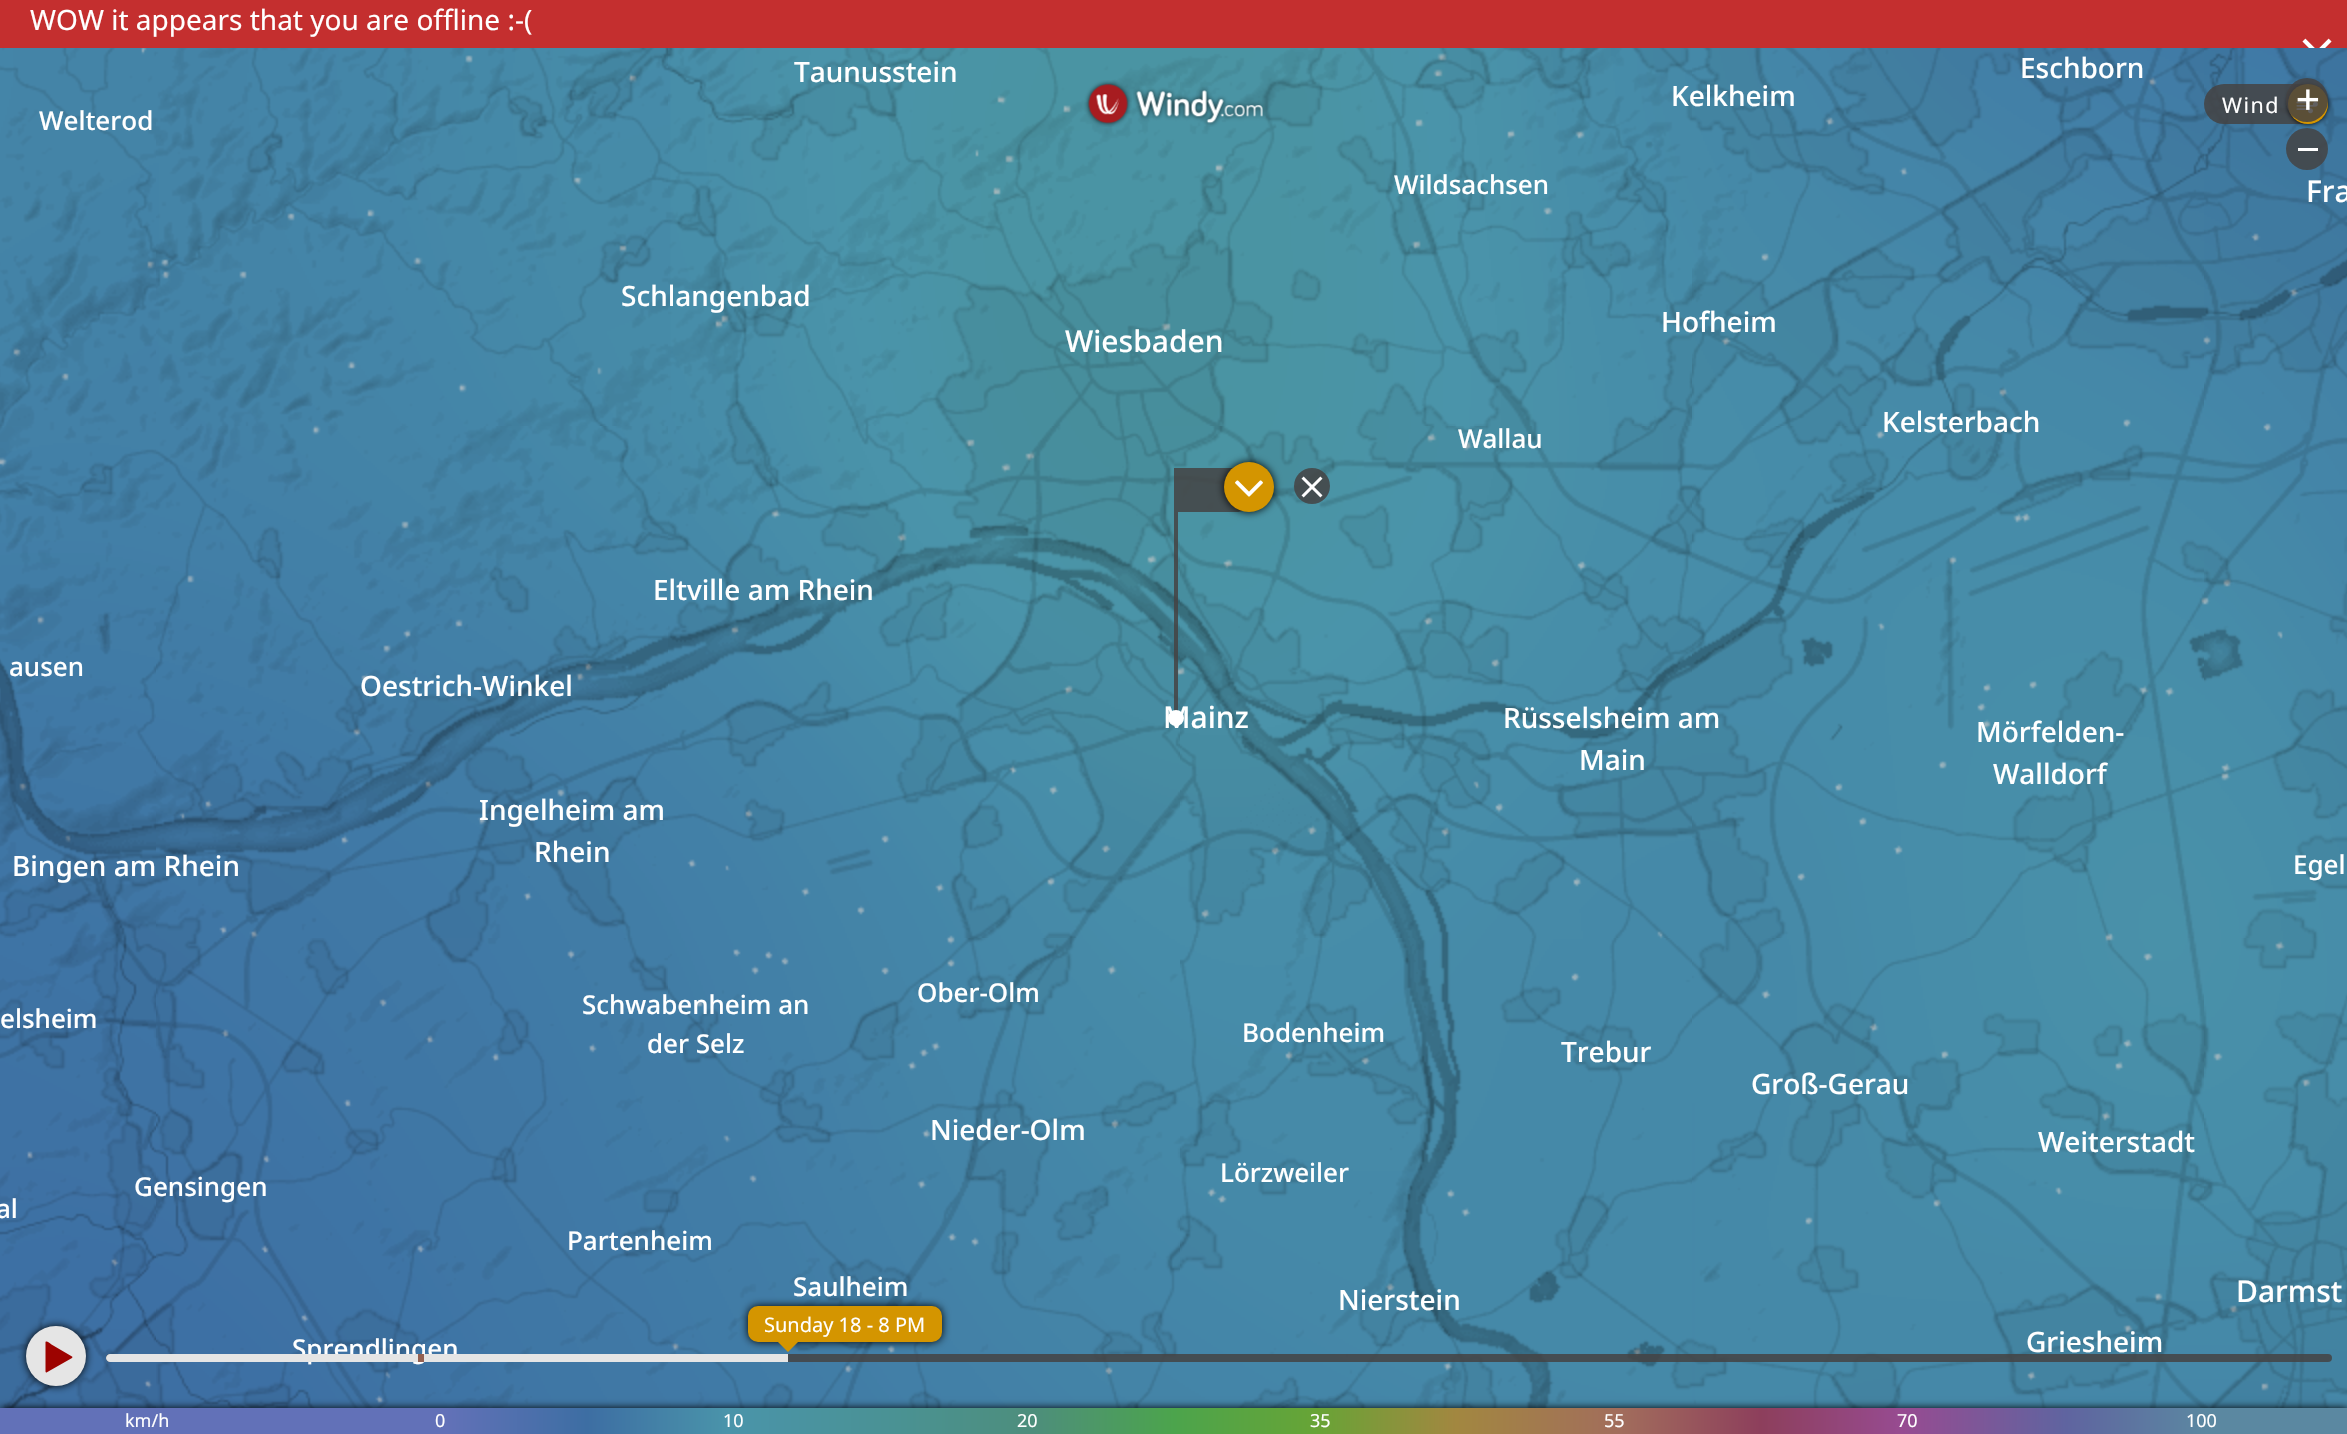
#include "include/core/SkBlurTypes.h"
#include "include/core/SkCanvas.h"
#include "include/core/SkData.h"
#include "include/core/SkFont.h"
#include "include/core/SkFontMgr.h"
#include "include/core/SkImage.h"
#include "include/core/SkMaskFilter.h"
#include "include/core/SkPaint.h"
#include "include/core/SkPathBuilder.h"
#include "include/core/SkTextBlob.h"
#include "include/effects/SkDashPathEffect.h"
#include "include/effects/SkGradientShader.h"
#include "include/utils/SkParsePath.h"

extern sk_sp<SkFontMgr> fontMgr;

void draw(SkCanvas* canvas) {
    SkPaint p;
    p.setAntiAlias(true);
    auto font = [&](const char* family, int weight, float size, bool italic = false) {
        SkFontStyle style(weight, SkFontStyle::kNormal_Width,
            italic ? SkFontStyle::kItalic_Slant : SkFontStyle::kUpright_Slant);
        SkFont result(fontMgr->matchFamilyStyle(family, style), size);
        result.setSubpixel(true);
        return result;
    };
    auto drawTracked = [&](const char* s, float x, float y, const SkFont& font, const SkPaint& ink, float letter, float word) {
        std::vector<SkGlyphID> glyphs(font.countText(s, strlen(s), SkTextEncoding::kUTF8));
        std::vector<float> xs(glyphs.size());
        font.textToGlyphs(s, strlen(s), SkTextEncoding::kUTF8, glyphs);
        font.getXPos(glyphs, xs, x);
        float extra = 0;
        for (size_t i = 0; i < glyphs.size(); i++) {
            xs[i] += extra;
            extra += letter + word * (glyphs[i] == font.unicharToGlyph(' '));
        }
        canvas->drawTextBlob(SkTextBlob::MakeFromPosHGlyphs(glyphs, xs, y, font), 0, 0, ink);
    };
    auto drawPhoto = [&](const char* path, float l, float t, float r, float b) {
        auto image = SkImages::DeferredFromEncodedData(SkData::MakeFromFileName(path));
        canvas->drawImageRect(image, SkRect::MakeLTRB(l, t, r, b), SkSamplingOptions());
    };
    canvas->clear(0xFFFFFFFF);
    p.setColor(0xFFC42F2F);
    canvas->drawRect(SkRect::MakeLTRB(0, 0, 2347, 48), p);
    auto font1 = font("Noto Sans", 400, 28);
    p.setColor(0xFFFFFFFF);
    canvas->drawString("WOW it appears that you are offline :-(", 30, 30, font1, p);
    drawPhoto("media/1.png", 2302, 38, 2332, 48);
    drawPhoto("media/2.png", 0, 48, 156, 426);
    drawPhoto("media/3.png", 156, 48, 668, 426);
    drawPhoto("media/4.png", 668, 48, 1180, 426);
    drawPhoto("media/5.png", 1180, 48, 1692, 426);
    drawPhoto("media/6.png", 1692, 48, 2204, 426);
    drawPhoto("media/7.png", 2204, 48, 2347, 426);
    drawPhoto("media/8.png", 0, 426, 156, 938);
    drawPhoto("media/9.png", 156, 426, 668, 938);
    drawPhoto("media/10.png", 668, 426, 1180, 938);
    drawPhoto("media/11.png", 1180, 426, 1692, 938);
    drawPhoto("media/12.png", 1692, 426, 2204, 938);
    drawPhoto("media/13.png", 2204, 426, 2347, 938);
    drawPhoto("media/14.png", 0, 938, 156, 1408);
    drawPhoto("media/15.png", 156, 938, 668, 1408);
    drawPhoto("media/16.png", 668, 938, 1180, 1408);
    drawPhoto("media/17.png", 1180, 938, 1692, 1408);
    drawPhoto("media/18.png", 1692, 938, 2204, 1408);
    drawPhoto("media/19.png", 2204, 938, 2347, 1408);
    drawPhoto("media/20.png", 0, 48, 2311, 1404);
    drawPhoto("media/21.png", 0, 48, 156, 426);
    drawPhoto("media/22.png", 156, 48, 668, 426);
    drawPhoto("media/23.png", 668, 48, 1180, 426);
    drawPhoto("media/24.png", 1180, 48, 1692, 426);
    drawPhoto("media/25.png", 1692, 48, 2204, 426);
    drawPhoto("media/26.png", 2204, 48, 2347, 426);
    drawPhoto("media/27.png", 0, 426, 156, 938);
    drawPhoto("media/28.png", 156, 426, 668, 938);
    drawPhoto("media/29.png", 668, 426, 1180, 938);
    drawPhoto("media/30.png", 1180, 426, 1692, 938);
    drawPhoto("media/31.png", 1692, 426, 2204, 938);
    drawPhoto("media/32.png", 2204, 426, 2347, 938);
    drawPhoto("media/33.png", 0, 938, 156, 1408);
    drawPhoto("media/34.png", 156, 938, 668, 1408);
    drawPhoto("media/35.png", 668, 938, 1180, 1408);
    drawPhoto("media/36.png", 1180, 938, 1692, 1408);
    drawPhoto("media/37.png", 1692, 938, 2204, 1408);
    drawPhoto("media/38.png", 2204, 938, 2347, 1408);
    auto font2 = font("Noto Sans", 500, 26);
    canvas->drawString("Welterod", 39, 130, font2, p);
    auto font3 = font("Noto Sans", 500, 28);
    canvas->drawString("Taunusstein", 794, 82, font3, p);
    canvas->drawString("Schlangenbad", 621, 306, font3, p);
    auto font4 = font("Noto Sans", 500, 30);
    canvas->drawString("Wiesbaden", 1065, 352, font4, p);
    {
        const struct { const char* s; float x, y; } items[] = {
            {"Eschborn", 2020, 78},
            {"Kelkheim", 1671, 106},
            {"Hofheim", 1661, 332},
            {"Kelsterbach", 1882, 432},
        };
        for (auto [s, x, y] : items) {
            canvas->drawString(s, x, y, font3, p);
        }
    }
    canvas->drawString("Wildsachsen", 1394, 194, font2, p);
    canvas->drawString("Fra", 2306, 202, font4, p);
    canvas->drawString("Eltville am Rhein", 653, 600, font3, p);
    canvas->drawString("Wallau", 1458, 448, font2, p);
    canvas->drawString("Mainz", 1163, 728, font4, p);
    canvas->drawString("Rüsselsheim am", 1503, 728, font3, p);
    canvas->drawString("Main", 1579, 770, font3, p);
    canvas->drawString("ausen", 9, 676, font2, p);
    {
        const struct { const char* s; float x, y; } items[] = {
            {"Bingen am Rhein", 12, 876},
            {"Oestrich-Winkel", 360, 696},
            {"Ingelheim am", 479, 820},
            {"Rhein", 534, 862},
            {"Mörfelden-", 1976, 742},
            {"Walldorf", 1993, 784},
        };
        for (auto [s, x, y] : items) {
            canvas->drawString(s, x, y, font3, p);
        }
    }
    {
        const struct { const char* s; float x, y; } items[] = {
            {"Egel", 2293, 874},
            {"elsheim", 0, 1028},
            {"al", -4, 1218},
            {"Gensingen", 134, 1196},
            {"Partenheim", 567, 1250},
            {"Sprendlingen", 292, 1358},
            {"Schwabenheim an", 582, 1014},
            {"der Selz", 647, 1053},
            {"Ober-Olm", 917, 1002},
        };
        for (auto [s, x, y] : items) {
            canvas->drawString(s, x, y, font2, p);
        }
    }
    canvas->drawString("Nieder-Olm", 930, 1140, font3, p);
    canvas->drawString("Saulheim", 793, 1296, font2, p);
    canvas->drawString("Bodenheim", 1242, 1042, font2, p);
    canvas->drawString("Trebur", 1561, 1062, font3, p);
    canvas->drawString("Lörzweiler", 1220, 1182, font2, p);
    {
        const struct { const char* s; float x, y; } items[] = {
            {"Nierstein", 1338, 1310},
            {"Groß-Gerau", 1751, 1094},
            {"Weiterstadt", 2038, 1152},
            {"Griesheim", 2026, 1352},
        };
        for (auto [s, x, y] : items) {
            canvas->drawString(s, x, y, font3, p);
        }
    }
    canvas->drawString("Darmst", 2236, 1302, font4, p);
    p.setColor(0xD6444141);
    canvas->drawRect(SkRect::MakeLTRB(1174, 468, 1178, 718), p);
    p.setColor(0xFFFFFFFF);
    canvas->drawCircle(1176, 718, 8, p);
    p.setColor(0xD6444141);
    canvas->drawPath(SkPathBuilder().moveTo(1178, 468).lineTo(1236, 468).cubicTo(1248, 468, 1258, 478, 1258, 490).cubicTo(1258, 502, 1248, 512, 1236, 512).lineTo(1178, 512).close().detach(), p);
    p.setColor(0xFF000000);
    p.setMaskFilter(SkMaskFilter::MakeBlur(kNormal_SkBlurStyle, 4));
    canvas->drawRoundRect(SkRect::MakeLTRB(1224, 462, 1274, 512), 25, 25, p);
    p.setMaskFilter(nullptr);
    p.setColor(0xFFD49500);
    canvas->drawCircle(1249, 487, 25, p);
    drawPhoto("media/39.png", 1235, 480, 1263, 497);
    p.setColor(0xD6444141);
    canvas->drawCircle(1312, 486, 18, p);
    drawPhoto("media/40.png", 1301, 476, 1323, 498);
    drawPhoto("media/41.png", 1084, 80, 1132, 127);
    drawPhoto("media/42.png", 1133, 87, 1267, 127);
    canvas->drawRoundRect(SkRect::MakeLTRB(2204, 84, 2328, 124), 20, 20, p);
    auto font5 = font("Noto Sans", 400, 21.5f);
    p.setColor(0xFFFFFFFF);
    drawTracked("Wind", 2222, 113, font5, p, 1.5f, 0);
    p.setColor(0xFF000000);
    p.setMaskFilter(SkMaskFilter::MakeBlur(kNormal_SkBlurStyle, 2.5f));
    canvas->drawRoundRect(SkRect::MakeLTRB(2288, 84, 2328, 124), 20, 20, p);
    p.setMaskFilter(nullptr);
    p.setColor(0xFFD49500);
    canvas->drawCircle(2308, 104, 20, p);
    drawPhoto("media/43.png", 2296, 101, 2318, 114);
    p.setColor(0xD6444141);
    canvas->drawRoundRect(SkRect::MakeLTRB(2286, 78, 2328, 122), 21, 21, p);
    drawPhoto("media/44.png", 2297, 89, 2319, 110);
    canvas->drawCircle(2307, 149, 21, p);
    p.setColor(0xFFFFFFFF);
    canvas->drawRect(SkRect::MakeLTRB(2298, 148, 2318, 151), p);
    p.setColor(0xFF000000);
    p.setMaskFilter(SkMaskFilter::MakeBlur(kNormal_SkBlurStyle, 4));
    canvas->drawRoundRect(SkRect::MakeLTRB(26, 1326, 86, 1386), 30, 30, p);
    p.setMaskFilter(nullptr);
    p.setColor(0xFFE5E5E5);
    canvas->drawCircle(56, 1356, 30, p);
    p.setColor(0xFF9D0300);
    canvas->drawPath(SkPathBuilder().moveTo(72.5f, 1357).lineTo(72, 1356.5f).lineTo(51.5f, 1344.5f).cubicTo(49.5f, 1343, 46.5f, 1340.5f, 45.5f, 1342).lineTo(45.5f, 1371.5f).cubicTo(45.5f, 1372, 46, 1372.5f, 46.5f, 1372.5f).lineTo(72, 1358).close().detach(), p);
    p.setColor(0xFF000000);
    p.setMaskFilter(SkMaskFilter::MakeBlur(kNormal_SkBlurStyle, 4));
    canvas->drawRoundRect(SkRect::MakeLTRB(748, 1306, 942, 1342), 10, 10, p);
    p.setMaskFilter(nullptr);
    p.setColor(0xFFD49500);
    canvas->drawRoundRect(SkRect::MakeLTRB(748, 1306, 942, 1342), 10, 10, p);
    auto font6 = font("Noto Sans", 400, 20);
    p.setColor(0xFFFFFFFF);
    canvas->drawString("Sunday 18 - 8 PM", 764, 1332, font6, p);
    p.setColor(0xFFD49500);
    canvas->drawPath(SkPathBuilder().moveTo(778, 1342).lineTo(798, 1342).lineTo(788, 1352).close().detach(), p);
    p.setColor(0xD6444141);
    canvas->drawRoundRect(SkRect::MakeLTRB(106, 1354, 2332, 1362), 4, 4, p);
    p.setColor(0xFFE5E5E5);
    canvas->drawPath(SkPathBuilder().moveTo(110, 1354).lineTo(788, 1354).lineTo(788, 1362).lineTo(110, 1362).cubicTo(108, 1362, 106, 1360, 106, 1358).cubicTo(106, 1356, 108, 1354, 110, 1354).close().detach(), p);
    p.setColor(0xFF946051);
    canvas->drawRect(SkRect::MakeLTRB(418, 1354, 424, 1362), p);
    p.setColor(0xFF000000);
    p.setMaskFilter(SkMaskFilter::MakeBlur(kNormal_SkBlurStyle, 4));
    canvas->drawRect(SkRect::MakeLTRB(0, 1408, 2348, 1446), p);
    p.setMaskFilter(nullptr);
    {
        const SkColor colors[] = {0xFF6271B8, 0xFF6271B8, 0xFF3D6EA3, 0xFF4A94AA, 0xFF4A9294, 0xFF4D8E7C, 0xFF4CA44C, 0xFF67A436, 0xFFA28740, 0xFFA26D5C, 0xFF8D3F5C, 0xFF974B91, 0xFF5F64A0, 0xFF5B88A1, 0xFF5B88A1};
        const float stops[] = {0, 0.19f, 0.25f, 0.31f, 0.38f, 0.44f, 0.5f, 0.56f, 0.62f, 0.69f, 0.75f, 0.81f, 0.88f, 0.94f, 1};
        const SkPoint ends[] = {{0, 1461}, {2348, 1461}};
        p.setShader(SkGradientShader::MakeLinear(ends, colors, stops, 15, SkTileMode::kClamp));
        p.setAlpha(255);
    }
    canvas->drawRect(SkRect::MakeLTRB(0, 1408, 2347, 1434), p);
    auto font7 = font("Noto Sans", 400, 18);
    p.setShader(nullptr);
    p.setColor(0xFFFFFFFF);
    {
        const struct { const char* s; float x, y; } items[] = {
            {"km/h", 125, 1427},
            {"0", 435, 1427},
            {"10", 723, 1427},
            {"20", 1017, 1427},
            {"35", 1310, 1427},
            {"55", 1604, 1427},
            {"70", 1897, 1427},
            {"100", 2186, 1427},
        };
        for (auto [s, x, y] : items) {
            canvas->drawString(s, x, y, font7, p);
        }
    }
}
